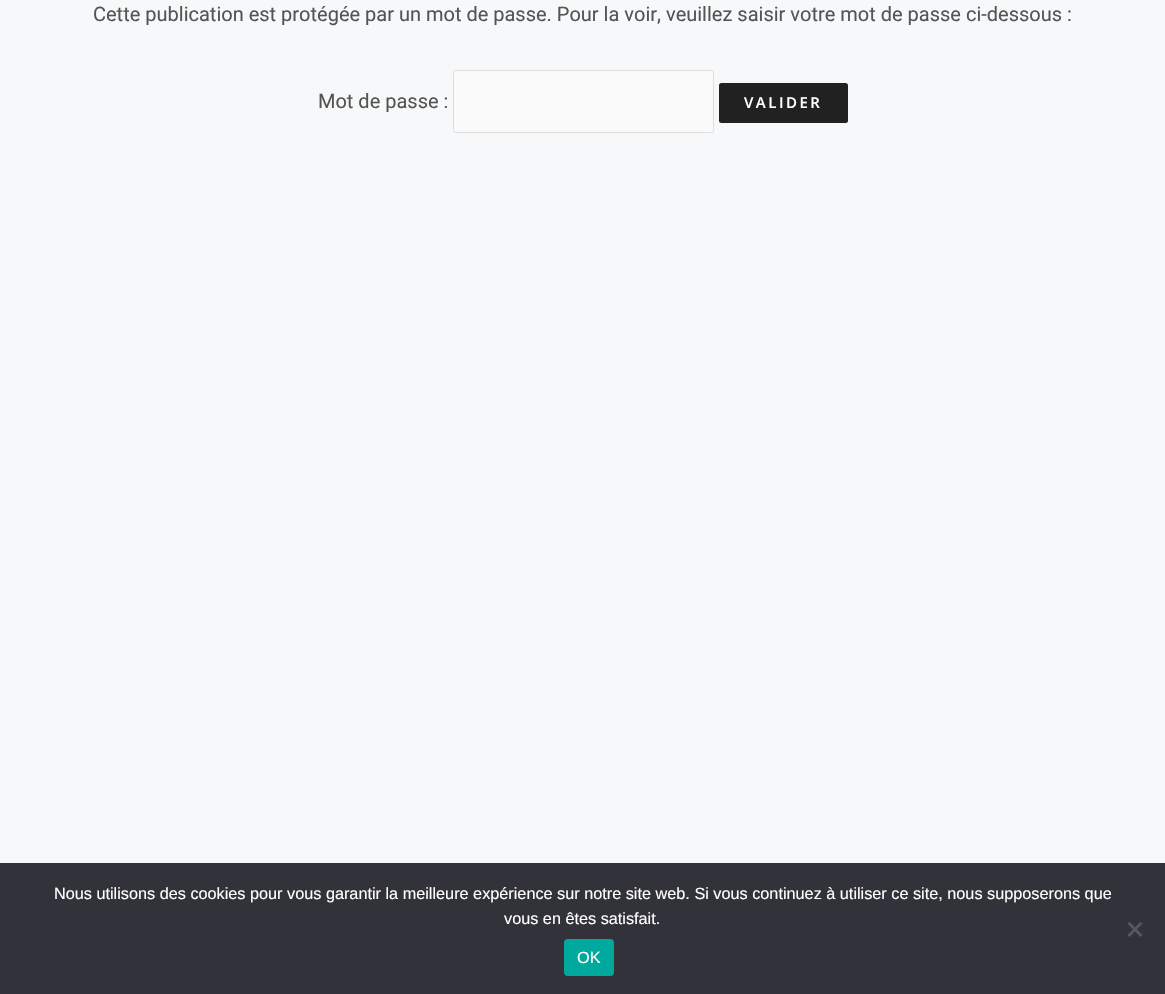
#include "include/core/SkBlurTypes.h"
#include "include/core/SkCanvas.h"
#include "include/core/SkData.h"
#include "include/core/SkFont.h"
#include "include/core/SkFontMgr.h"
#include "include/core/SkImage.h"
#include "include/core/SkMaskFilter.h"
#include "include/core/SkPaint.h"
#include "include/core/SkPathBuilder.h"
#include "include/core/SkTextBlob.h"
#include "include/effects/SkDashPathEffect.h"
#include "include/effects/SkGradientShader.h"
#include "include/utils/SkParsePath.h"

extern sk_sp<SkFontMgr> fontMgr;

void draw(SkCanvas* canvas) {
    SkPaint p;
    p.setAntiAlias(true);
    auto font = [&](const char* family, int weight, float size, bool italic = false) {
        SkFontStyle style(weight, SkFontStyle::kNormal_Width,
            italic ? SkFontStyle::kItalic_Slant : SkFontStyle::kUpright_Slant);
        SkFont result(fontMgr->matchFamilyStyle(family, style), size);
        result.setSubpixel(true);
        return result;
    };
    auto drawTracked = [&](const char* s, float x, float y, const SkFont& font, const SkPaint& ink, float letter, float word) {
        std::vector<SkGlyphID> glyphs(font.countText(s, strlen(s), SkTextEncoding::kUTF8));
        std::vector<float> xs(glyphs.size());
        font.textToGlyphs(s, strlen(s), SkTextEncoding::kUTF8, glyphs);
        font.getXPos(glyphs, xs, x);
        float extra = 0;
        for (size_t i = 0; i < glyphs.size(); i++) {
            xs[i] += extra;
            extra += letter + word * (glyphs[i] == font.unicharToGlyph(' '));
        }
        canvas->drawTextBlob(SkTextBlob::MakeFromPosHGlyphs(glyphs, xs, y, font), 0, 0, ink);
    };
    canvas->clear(0xFFF7F8F9);
    auto font1 = font("Roboto", 400, 20);
    p.setColor(0xFF545454);
    canvas->drawString("Cette publication est protégée par un mot de passe. Pour la voir, veuillez saisir votre mot de passe ci-dessous :", 93, 21, font1, p);
    canvas->drawString("Mot de passe :", 318, 108, font1, p);
    p.setColor(0xFFFAFAFA);
    canvas->drawRoundRect(SkRect::MakeLTRB(453.5f, 70.5f, 713.5f, 132.5f), 2, 2, p);
    p.setStyle(SkPaint::kStroke_Style);
    p.setStrokeWidth(1);
    p.setColor(0xFFDDDDDD);
    canvas->drawRoundRect(SkRect::MakeLTRB(453.5f, 70.5f, 713.5f, 132.5f), 2, 2, p);
    p.setStyle(SkPaint::kFill_Style);
    p.setColor(0xFF212121);
    canvas->drawRoundRect(SkRect::MakeLTRB(719, 83, 848, 123), 2.5f, 2.5f, p);
    auto font2 = font("Open Sans", 600, 15);
    p.setColor(0xFFFFFFFF);
    drawTracked("VALIDER", 744, 108, font2, p, 2.5f, 0);
    p.setColor(0xFF32323A);
    canvas->drawRect(SkRect::MakeLTRB(0, 863, 1165, 994), p);
    auto font3 = font("Liberation Sans", 400, 16.25f);
    p.setColor(0xFFFFFFFF);
    canvas->drawString("Nous utilisons des cookies pour vous garantir la meilleure expérience sur notre site web. Si vous continuez à utiliser ce site, nous supposerons que", 54, 899, font3, p);
    canvas->drawString("vous en êtes satisfait.", 504, 924, font3, p);
    p.setColor(0xFF59595D);
    canvas->drawPath(SkPathBuilder().moveTo(1140.5f, 922).lineTo(1142.5f, 923.5f).lineTo(1129.5f, 937).lineTo(1127.5f, 935).close().detach(), p);
    canvas->drawPath(SkPathBuilder().moveTo(1127.5f, 923.5f).lineTo(1129.5f, 922).lineTo(1142.5f, 935).lineTo(1140.5f, 937).close().detach(), p);
    p.setColor(0xFF00A99D);
    canvas->drawRoundRect(SkRect::MakeLTRB(564, 939, 614, 976), 4, 4, p);
    p.setColor(0xFFFFFFFF);
    canvas->drawString("OK", 577, 963, font3, p);
}
